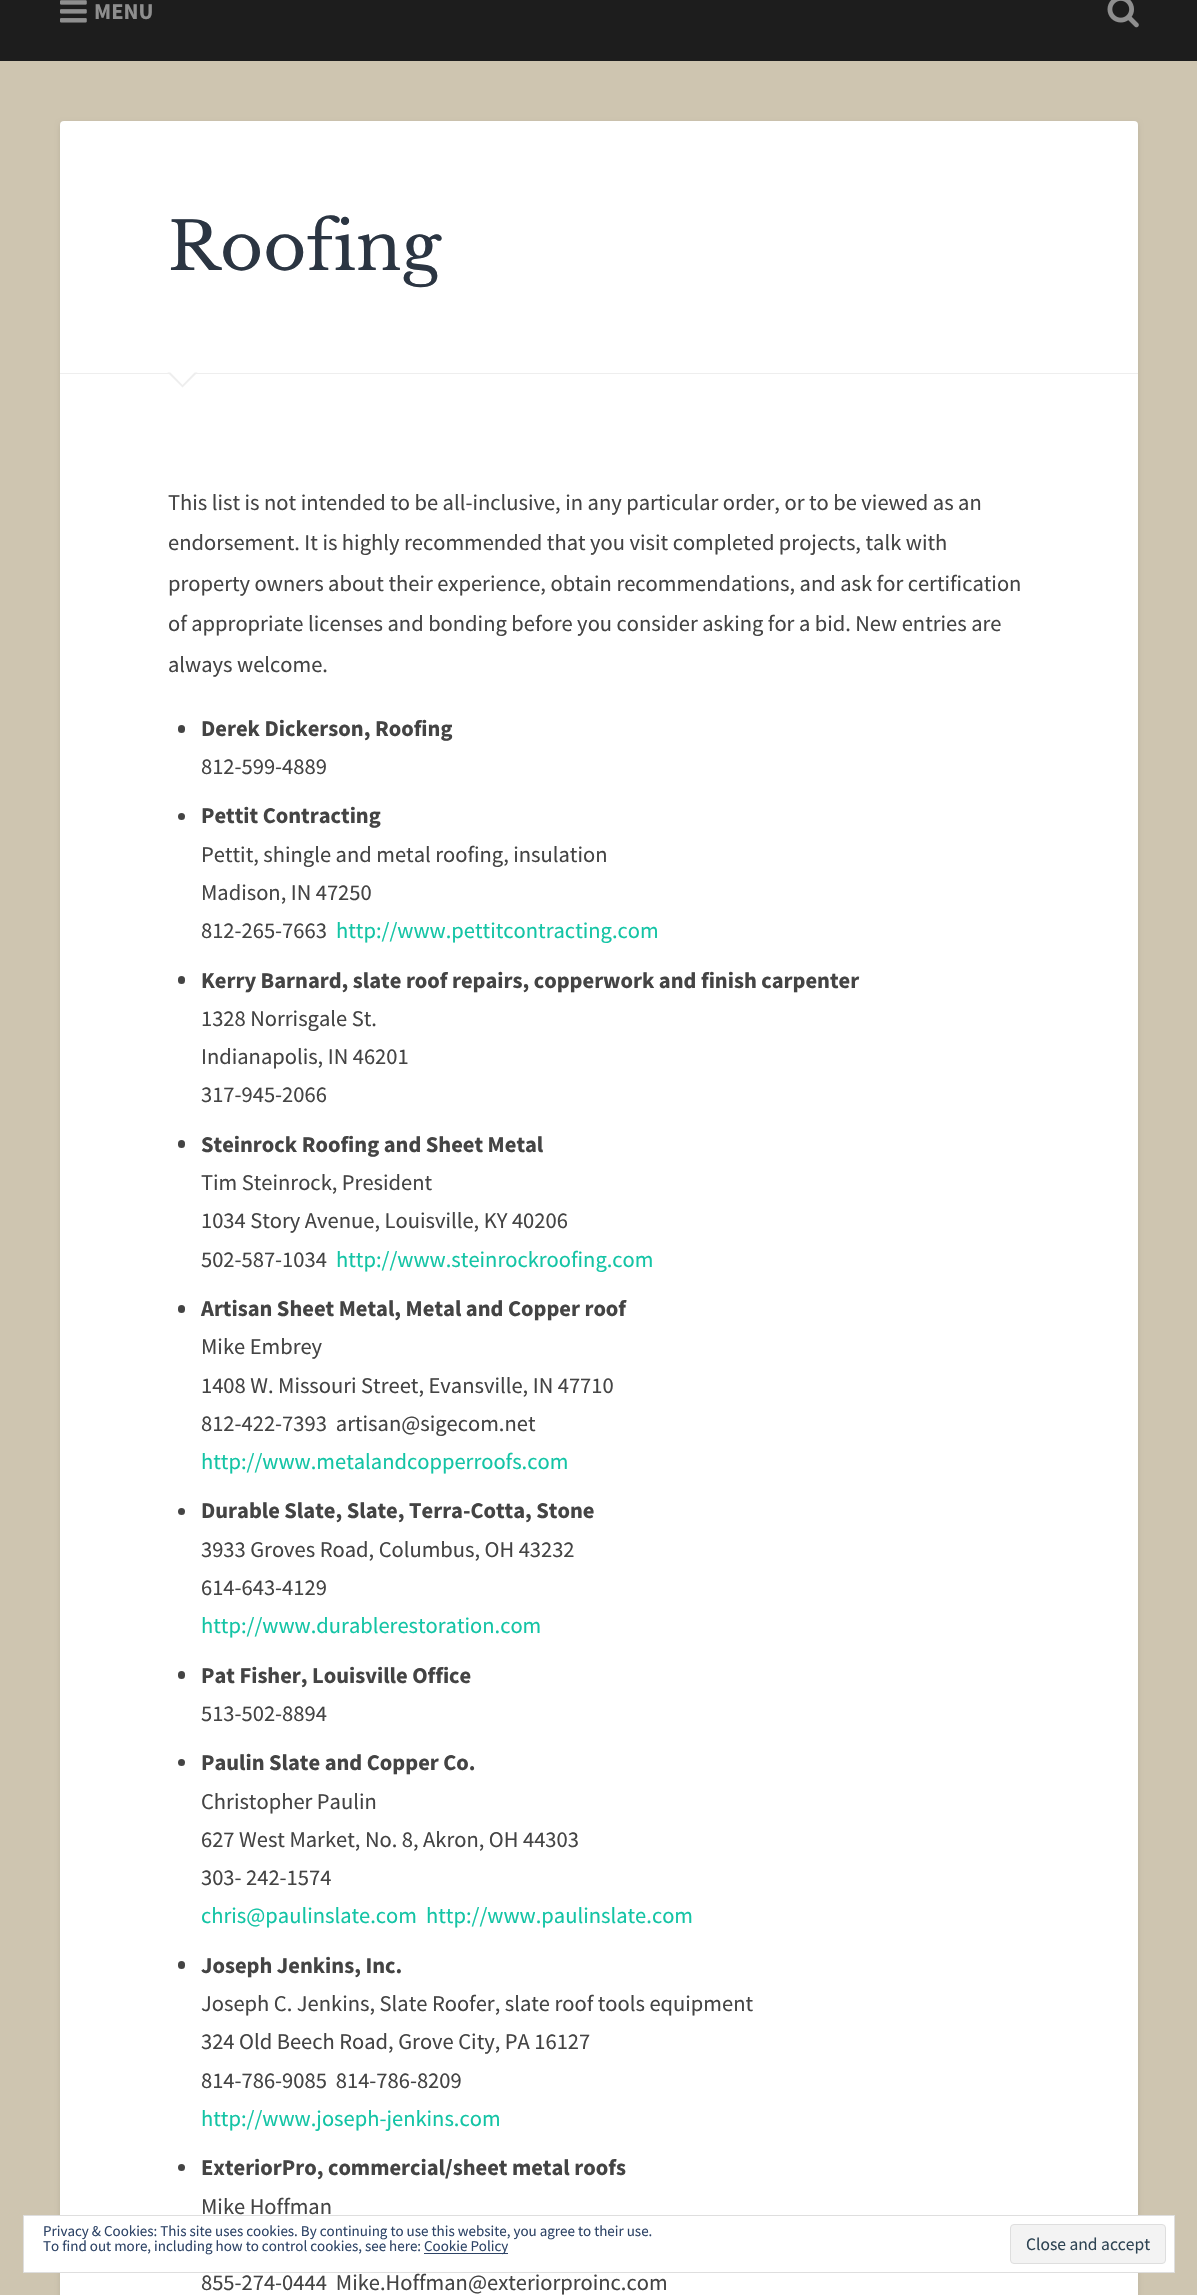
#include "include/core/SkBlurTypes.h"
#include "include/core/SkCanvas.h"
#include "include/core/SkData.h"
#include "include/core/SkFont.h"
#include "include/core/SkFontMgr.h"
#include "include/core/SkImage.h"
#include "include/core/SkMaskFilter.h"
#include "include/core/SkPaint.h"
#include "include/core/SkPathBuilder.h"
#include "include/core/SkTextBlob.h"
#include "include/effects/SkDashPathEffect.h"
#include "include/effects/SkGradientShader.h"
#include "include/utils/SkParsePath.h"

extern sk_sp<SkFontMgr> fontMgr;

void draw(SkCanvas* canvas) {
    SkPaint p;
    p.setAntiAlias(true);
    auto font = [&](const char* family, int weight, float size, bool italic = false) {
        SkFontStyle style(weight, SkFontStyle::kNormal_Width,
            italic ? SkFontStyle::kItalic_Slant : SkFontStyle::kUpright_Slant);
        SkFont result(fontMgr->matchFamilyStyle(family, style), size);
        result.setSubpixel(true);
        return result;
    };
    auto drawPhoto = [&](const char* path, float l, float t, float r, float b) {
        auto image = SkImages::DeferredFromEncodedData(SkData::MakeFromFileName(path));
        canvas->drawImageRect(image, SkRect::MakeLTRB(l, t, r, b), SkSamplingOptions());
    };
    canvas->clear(0xFFCEC5B0);
    p.setColor(0xFF1D1D1D);
    canvas->drawRect(SkRect::MakeLTRB(0, 0, 1197, 61), p);
    drawPhoto("media/1.png", 60, 0, 87, 23);
    auto font1 = font("Source Sans Pro", 700, 22.5f);
    p.setColor(0xFF8E8E8E);
    canvas->drawString("MENU", 94, 19, font1, p);
    drawPhoto("media/2.png", 1107, 0, 1139, 28);
    p.setColor(0x1A000000);
    p.setMaskFilter(SkMaskFilter::MakeBlur(kNormal_SkBlurStyle, 2.5f));
    canvas->drawRoundRect(SkRect::MakeLTRB(60, 123, 1138, 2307), 4, 4, p);
    p.setMaskFilter(nullptr);
    p.setColor(0xFFFFFFFF);
    canvas->drawRoundRect(SkRect::MakeLTRB(60, 121, 1138, 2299), 4, 4, p);
    p.setColor(0xFFEEEEEE);
    canvas->drawRect(SkRect::MakeLTRB(60, 373, 1138, 374), p);
    auto font2 = font("Libre Baskerville", 400, 66);
    p.setColor(0xFF2B3542);
    canvas->drawString("Roofing", 168, 270, font2, p);
    p.setColor(0xFFEEEEEE);
    canvas->drawPath(SkPathBuilder().moveTo(167.5f, 372.5f).lineTo(197.5f, 372.5f).lineTo(182.5f, 387.5f).close().detach(), p);
    p.setColor(0xFFFFFFFF);
    canvas->drawPath(SkPathBuilder().moveTo(169, 371).lineTo(196, 371).lineTo(182.5f, 385).close().detach(), p);
    auto font3 = font("Source Sans Pro", 400, 22.5f);
    p.setColor(0xFF444444);
    {
        const struct { const char* s; float x, y; } items[] = {
            {"This list is not intended to be all-inclusive, in any particular order, or to be viewed as an", 168, 510},
            {"endorsement. It is highly recommended that you visit completed projects, talk with", 168, 550},
            {"property owners about their experience, obtain recommendations, and ask for certification", 168, 591},
            {"of appropriate licenses and bonding before you consider asking for a bid. New entries are", 168, 631},
            {"always welcome.", 168, 672},
        };
        for (auto [s, x, y] : items) {
            canvas->drawString(s, x, y, font3, p);
        }
    }
    canvas->drawRoundRect(SkRect::MakeLTRB(178, 725, 185, 733), 3.5f, 3.5f, p);
    canvas->drawString("Derek Dickerson, Roofing", 201, 736, font1, p);
    canvas->drawString("812-599-4889", 201, 774, font3, p);
    canvas->drawCircle(181.5f, 816.5f, 3.5f, p);
    canvas->drawString("Pettit Contracting", 201, 823, font1, p);
    {
        const struct { const char* s; float x, y; } items[] = {
            {"Pettit, shingle and metal roofing, insulation", 201, 862},
            {"Madison, IN 47250", 201, 900},
            {"812-265-7663", 201, 938},
        };
        for (auto [s, x, y] : items) {
            canvas->drawString(s, x, y, font3, p);
        }
    }
    p.setColor(0xFF13C4A5);
    canvas->drawString("http://www.pettitcontracting.com", 336, 938, font3, p);
    p.setColor(0xFF444444);
    canvas->drawRoundRect(SkRect::MakeLTRB(178, 976, 185, 984), 3.5f, 3.5f, p);
    canvas->drawString("Kerry Barnard, slate roof repairs, copperwork and finish carpenter", 201, 988, font1, p);
    {
        const struct { const char* s; float x, y; } items[] = {
            {"1328 Norrisgale St.", 201, 1026},
            {"Indianapolis, IN 46201", 201, 1064},
            {"317-945-2066", 201, 1102},
        };
        for (auto [s, x, y] : items) {
            canvas->drawString(s, x, y, font3, p);
        }
    }
    canvas->drawRoundRect(SkRect::MakeLTRB(178, 1140, 185, 1148), 3.5f, 3.5f, p);
    canvas->drawString("Steinrock Roofing and Sheet Metal", 201, 1152, font1, p);
    {
        const struct { const char* s; float x, y; } items[] = {
            {"Tim Steinrock, President", 201, 1190},
            {"1034 Story Avenue, Louisville, KY 40206", 201, 1228},
            {"502-587-1034", 201, 1267},
        };
        for (auto [s, x, y] : items) {
            canvas->drawString(s, x, y, font3, p);
        }
    }
    p.setColor(0xFF13C4A5);
    canvas->drawString("http://www.steinrockroofing.com", 336, 1267, font3, p);
    p.setColor(0xFF444444);
    canvas->drawRoundRect(SkRect::MakeLTRB(178, 1305, 185, 1313), 3.5f, 3.5f, p);
    canvas->drawString("Artisan Sheet Metal, Metal and Copper roof", 201, 1316, font1, p);
    {
        const struct { const char* s; float x, y; } items[] = {
            {"Mike Embrey", 201, 1354},
            {"1408 W. Missouri Street, Evansville, IN 47710", 201, 1393},
            {"812-422-7393  artisan@sigecom.net", 201, 1431},
        };
        for (auto [s, x, y] : items) {
            canvas->drawString(s, x, y, font3, p);
        }
    }
    p.setColor(0xFF13C4A5);
    canvas->drawString("http://www.metalandcopperroofs.com", 201, 1469, font3, p);
    p.setColor(0xFF444444);
    canvas->drawCircle(181.5f, 1511.5f, 3.5f, p);
    canvas->drawString("Durable Slate, Slate, Terra-Cotta, Stone", 201, 1518, font1, p);
    canvas->drawString("3933 Groves Road, Columbus, OH 43232", 201, 1557, font3, p);
    canvas->drawString("614-643-4129", 201, 1595, font3, p);
    p.setColor(0xFF13C4A5);
    canvas->drawString("http://www.durablerestoration.com", 201, 1633, font3, p);
    p.setColor(0xFF444444);
    canvas->drawRoundRect(SkRect::MakeLTRB(178, 1671, 185, 1679), 3.5f, 3.5f, p);
    canvas->drawString("Pat Fisher, Louisville Office", 201, 1683, font1, p);
    canvas->drawString("513-502-8894", 201, 1721, font3, p);
    canvas->drawCircle(181.5f, 1762.5f, 3.5f, p);
    canvas->drawString("Paulin Slate and Copper Co.", 201, 1770, font1, p);
    {
        const struct { const char* s; float x, y; } items[] = {
            {"Christopher Paulin", 201, 1809},
            {"627 West Market, No. 8, Akron, OH 44303", 201, 1847},
            {"303- 242-1574", 201, 1885},
        };
        for (auto [s, x, y] : items) {
            canvas->drawString(s, x, y, font3, p);
        }
    }
    p.setColor(0xFF13C4A5);
    canvas->drawString("chris@paulinslate.com", 201, 1923, font3, p);
    canvas->drawString("http://www.paulinslate.com", 426, 1923, font3, p);
    p.setColor(0xFF444444);
    canvas->drawRoundRect(SkRect::MakeLTRB(178, 1961, 185, 1969), 3.5f, 3.5f, p);
    canvas->drawString("Joseph Jenkins, Inc.", 201, 1973, font1, p);
    {
        const struct { const char* s; float x, y; } items[] = {
            {"Joseph C. Jenkins, Slate Roofer, slate roof tools equipment", 201, 2011},
            {"324 Old Beech Road, Grove City, PA 16127", 201, 2049},
            {"814-786-9085  814-786-8209", 201, 2088},
        };
        for (auto [s, x, y] : items) {
            canvas->drawString(s, x, y, font3, p);
        }
    }
    p.setColor(0xFF13C4A5);
    canvas->drawString("http://www.joseph-jenkins.com", 201, 2126, font3, p);
    p.setColor(0xFF444444);
    canvas->drawCircle(181.5f, 2167.5f, 3.5f, p);
    canvas->drawString("ExteriorPro, commercial/sheet metal roofs", 201, 2175, font1, p);
    canvas->drawString("Mike Hoffman", 201, 2214, font3, p);
    canvas->drawString("855-274-0444  Mike.Hoffman@exteriorproinc.com", 201, 2290, font3, p);
    p.setColor(0xFFFFFFFF);
    canvas->drawRect(SkRect::MakeLTRB(23.5f, 2215.5f, 1174.5f, 2272.5f), p);
    p.setStyle(SkPaint::kStroke_Style);
    p.setStrokeWidth(1);
    p.setColor(0xFFDEDEDE);
    canvas->drawRect(SkRect::MakeLTRB(23.5f, 2215.5f, 1174.5f, 2272.5f), p);
    auto font4 = font("Source Sans Pro", 400, 15);
    p.setStyle(SkPaint::kFill_Style);
    p.setColor(0xFF2E4467);
    canvas->drawString("Privacy & Cookies: This site uses cookies. By continuing to use this website, you agree to their use.", 43, 2236, font4, p);
    canvas->drawString("To find out more, including how to control cookies, see here:", 43, 2251, font4, p);
    canvas->drawRect(SkRect::MakeLTRB(424, 2253, 508, 2254), p);
    canvas->drawString("Cookie Policy", 424, 2251, font4, p);
    p.setColor(0xFFF3F3F3);
    canvas->drawRoundRect(SkRect::MakeLTRB(1010.5f, 2224.5f, 1165.5f, 2263.5f), 3.5f, 3.5f, p);
    p.setStyle(SkPaint::kStroke_Style);
    p.setColor(0xFFDEDEDE);
    canvas->drawRoundRect(SkRect::MakeLTRB(1010.5f, 2224.5f, 1165.5f, 2263.5f), 3.5f, 3.5f, p);
    auto font5 = font("Source Sans Pro", 400, 17.5f);
    p.setStyle(SkPaint::kFill_Style);
    p.setColor(0xFF2E4453);
    canvas->drawString("Close and accept", 1026, 2250, font5, p);
}
